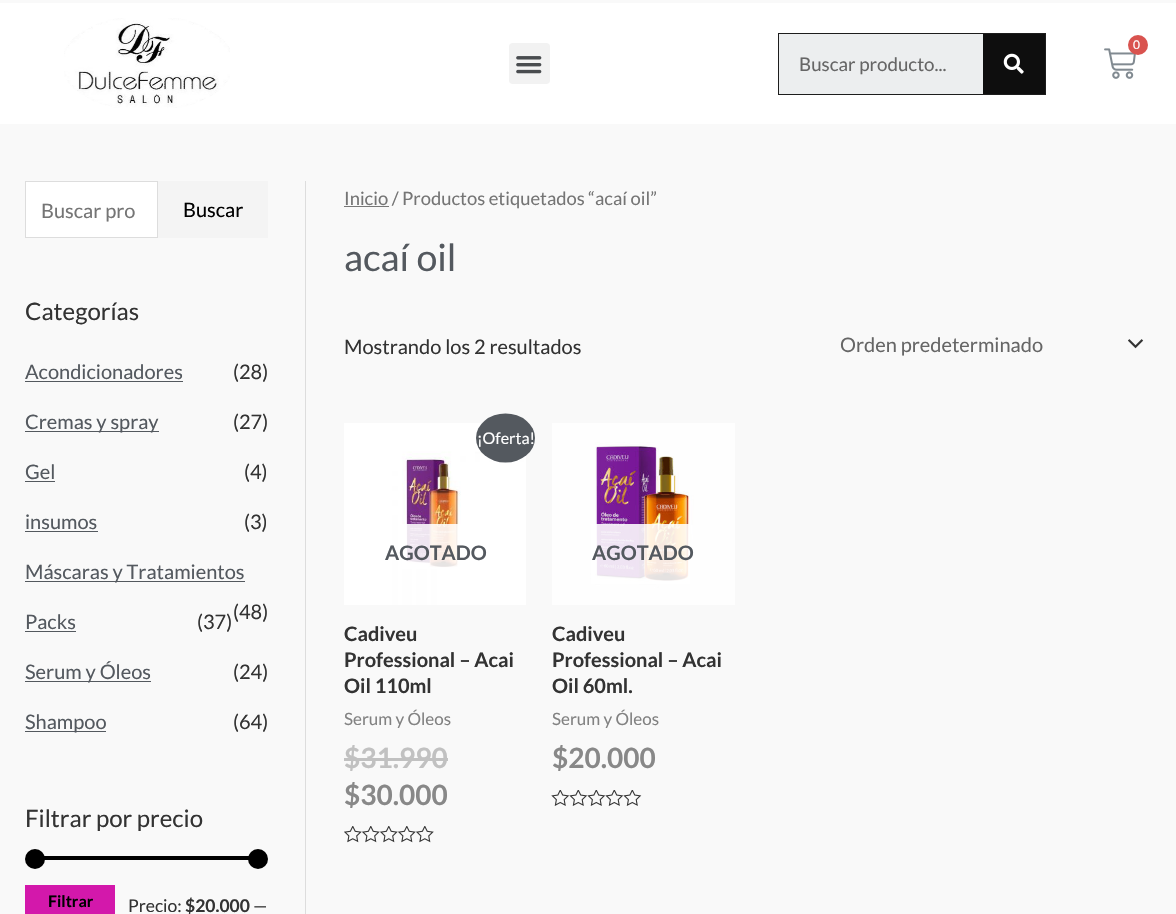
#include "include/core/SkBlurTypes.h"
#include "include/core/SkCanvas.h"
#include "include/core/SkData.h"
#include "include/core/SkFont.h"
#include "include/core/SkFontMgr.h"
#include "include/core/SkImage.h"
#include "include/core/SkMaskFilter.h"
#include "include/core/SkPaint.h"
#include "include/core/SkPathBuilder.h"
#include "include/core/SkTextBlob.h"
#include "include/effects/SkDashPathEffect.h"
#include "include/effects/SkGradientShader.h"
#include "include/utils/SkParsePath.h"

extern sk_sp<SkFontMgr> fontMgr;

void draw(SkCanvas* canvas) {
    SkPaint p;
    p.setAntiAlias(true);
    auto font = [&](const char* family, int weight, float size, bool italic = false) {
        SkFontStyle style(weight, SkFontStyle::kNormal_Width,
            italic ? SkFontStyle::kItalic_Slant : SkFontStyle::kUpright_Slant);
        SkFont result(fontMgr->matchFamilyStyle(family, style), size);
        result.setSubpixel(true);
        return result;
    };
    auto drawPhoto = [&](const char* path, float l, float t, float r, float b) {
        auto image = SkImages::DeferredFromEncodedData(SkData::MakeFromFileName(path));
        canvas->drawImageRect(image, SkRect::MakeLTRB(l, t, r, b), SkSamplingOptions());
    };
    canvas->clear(0xFFF9F9F9);
    p.setColor(0xFFFFFFFF);
    canvas->drawRect(SkRect::MakeLTRB(0, 3, 1176, 124), p);
    drawPhoto("media/1.png", 64, 18, 230, 108);
    p.setColor(0xFFF2F2F2);
    canvas->drawRoundRect(SkRect::MakeLTRB(509, 43, 550, 84), 4, 4, p);
    drawPhoto("media/2.png", 516, 56, 542, 74);
    p.setColor(0xFFECEEEF);
    canvas->drawRect(SkRect::MakeLTRB(779, 34, 983, 94), p);
    p.setStyle(SkPaint::kStroke_Style);
    p.setStrokeWidth(1);
    p.setColor(0xFF1D1D1D);
    canvas->drawRect(SkRect::MakeLTRB(778.5f, 33.5f, 1045.5f, 94.5f), p);
    auto font1 = font("Lato", 400, 18.75f);
    p.setStyle(SkPaint::kFill_Style);
    p.setColor(0xFF666666);
    canvas->drawString("Buscar producto...", 799, 71, font1, p);
    p.setColor(0xFF0E0E0E);
    canvas->drawRect(SkRect::MakeLTRB(983, 34, 1045, 94), p);
    drawPhoto("media/3.png", 1003, 53, 1024, 74);
    drawPhoto("media/4.png", 1104, 48, 1136, 79);
    p.setColor(0xFFD9534F);
    canvas->drawCircle(1138, 45, 10, p);
    auto font2 = font("Lato", 400, 12);
    p.setColor(0xFFFFFFFF);
    canvas->drawString("0", 1133, 49, font2, p);
    p.setColor(0xFFDDDDDD);
    canvas->drawRect(SkRect::MakeLTRB(305, 181, 306, 914), p);
    p.setColor(0xFFFFFFFF);
    canvas->drawRect(SkRect::MakeLTRB(25.5f, 181.5f, 157.5f, 237.5f), p);
    p.setStyle(SkPaint::kStroke_Style);
    p.setColor(0xFFDDDDDD);
    canvas->drawRect(SkRect::MakeLTRB(25.5f, 181.5f, 157.5f, 237.5f), p);
    auto font3 = font("Lato", 400, 20);
    p.setStyle(SkPaint::kFill_Style);
    p.setColor(0xFF757575);
    canvas->drawString("Buscar pro", 41, 218, font3, p);
    p.setColor(0xFFF4F4F4);
    canvas->drawRect(SkRect::MakeLTRB(158, 181, 268, 238), p);
    p.setColor(0xFF000000);
    canvas->drawString("Buscar", 183, 217, font3, p);
    auto font4 = font("Lato", 400, 24);
    p.setColor(0xFF333333);
    canvas->drawString("Categorías", 25, 320, font4, p);
    p.setColor(0xFF54595F);
    canvas->drawString("Acondicionadores", 25, 379, font3, p);
    canvas->drawRect(SkRect::MakeLTRB(25, 381, 183, 382), p);
    p.setColor(0xFF333333);
    canvas->drawString("(28)", 233, 379, font3, p);
    p.setColor(0xFF54595F);
    canvas->drawRect(SkRect::MakeLTRB(25, 431, 159, 432), p);
    canvas->drawString("Cremas y spray", 25, 429, font3, p);
    p.setColor(0xFF333333);
    canvas->drawString("(27)", 233, 429, font3, p);
    p.setColor(0xFF54595F);
    canvas->drawString("Gel", 25, 479, font3, p);
    canvas->drawRect(SkRect::MakeLTRB(25, 481, 55, 482), p);
    p.setColor(0xFF333333);
    canvas->drawString("(4)", 244, 479, font3, p);
    p.setColor(0xFF54595F);
    canvas->drawString("insumos", 25, 529, font3, p);
    canvas->drawRect(SkRect::MakeLTRB(25, 531, 98, 532), p);
    p.setColor(0xFF333333);
    canvas->drawString("(3)", 244, 529, font3, p);
    p.setColor(0xFF54595F);
    canvas->drawRect(SkRect::MakeLTRB(25, 581, 245, 582), p);
    canvas->drawString("Máscaras y Tratamientos", 25, 579, font3, p);
    p.setColor(0xFF333333);
    canvas->drawString("(48)", 233, 619, font3, p);
    p.setColor(0xFF54595F);
    canvas->drawString("Packs", 25, 629, font3, p);
    canvas->drawRect(SkRect::MakeLTRB(25, 631, 76, 632), p);
    p.setColor(0xFF333333);
    canvas->drawString("(37)", 197, 629, font3, p);
    p.setColor(0xFF54595F);
    canvas->drawRect(SkRect::MakeLTRB(25, 681, 151, 682), p);
    canvas->drawString("Serum y Óleos", 25, 679, font3, p);
    p.setColor(0xFF333333);
    canvas->drawString("(24)", 233, 679, font3, p);
    p.setColor(0xFF54595F);
    canvas->drawRect(SkRect::MakeLTRB(25, 731, 106, 732), p);
    canvas->drawString("Shampoo", 25, 729, font3, p);
    p.setColor(0xFF333333);
    canvas->drawString("(64)", 233, 729, font3, p);
    canvas->drawString("Filtrar por precio", 25, 827, font4, p);
    p.setColor(0xFF000000);
    canvas->drawRect(SkRect::MakeLTRB(44, 856, 249, 860), p);
    canvas->drawCircle(35, 859, 10, p);
    canvas->drawCircle(258, 859, 10, p);
    p.setColor(0xFFD318AB);
    canvas->drawRect(SkRect::MakeLTRB(25, 885, 115, 914), p);
    auto font5 = font("Lato", 700, 16);
    p.setColor(0xFF000000);
    canvas->drawString("Filtrar", 48, 907, font5, p);
    auto font6 = font("Lato", 400, 17.5f);
    p.setColor(0xFF333333);
    canvas->drawString("Precio:", 128, 912, font6, p);
    auto font7 = font("Lato", 700, 17.5f);
    canvas->drawString("$20.000", 185, 912, font7, p);
    canvas->drawString("—", 253, 912, font6, p);
    p.setColor(0xFF777777);
    canvas->drawRect(SkRect::MakeLTRB(344, 206, 389, 207), p);
    auto font8 = font("Lato", 400, 18.4f);
    p.setColor(0xFF757575);
    canvas->drawString("Inicio / Productos etiquetados “acaí oil”", 344, 205, font8, p);
    auto font9 = font("Lato", 400, 37.5f);
    p.setColor(0xFF54595F);
    canvas->drawString("acaí oil", 344, 271, font9, p);
    p.setColor(0xFF333333);
    canvas->drawString("Mostrando los 2 resultados", 344, 354, font3, p);
    drawPhoto("media/5.png", 1128, 339, 1144, 349);
    p.setColor(0xFF666666);
    canvas->drawString("Orden predeterminado", 840, 352, font3, p);
    drawPhoto("media/6.png", 344, 423, 526, 605);
    p.setColor(0xFF54595F);
    canvas->drawOval(SkRect::MakeLTRB(476, 413.5f, 535, 462.5f), p);
    auto font10 = font("Lato", 400, 16);
    p.setColor(0xFFFFFFFF);
    canvas->drawString("¡Oferta!", 477, 444, font10, p);
    p.setColor(0xE0FFFFFF);
    canvas->drawRect(SkRect::MakeLTRB(402, 524, 461, 569), p);
    auto font11 = font("Lato", 700, 20);
    p.setColor(0xFF54595F);
    canvas->drawString("AGOTADO", 385, 560, font11, p);
    p.setColor(0xFF333333);
    {
        const struct { const char* s; float x, y; } items[] = {
            {"Cadiveu", 344, 641},
            {"Professional – Acai", 344, 667},
            {"Oil 110ml", 344, 693},
        };
        for (auto [s, x, y] : items) {
            canvas->drawString(s, x, y, font11, p);
        }
    }
    auto font12 = font("Lato", 400, 17);
    p.setColor(0xFF828282);
    canvas->drawString("Serum y Óleos", 344, 725, font12, p);
    auto font13 = font("Lato", 700, 28);
    p.setColor(0xFFC1C1C1);
    canvas->drawString("$31.990", 344, 768, font13, p);
    canvas->drawRect(SkRect::MakeLTRB(344, 758, 448, 761), p);
    p.setColor(0xFF888888);
    canvas->drawString("$30.000", 344, 805, font13, p);
    drawPhoto("media/7.png", 344, 826, 434, 843);
    drawPhoto("media/8.png", 552, 423, 735, 605);
    p.setColor(0xE0FFFFFF);
    canvas->drawRect(SkRect::MakeLTRB(591, 524, 690, 584), p);
    p.setColor(0xFF54595F);
    canvas->drawString("AGOTADO", 592, 560, font11, p);
    p.setColor(0xFF333333);
    {
        const struct { const char* s; float x, y; } items[] = {
            {"Cadiveu", 552, 641},
            {"Professional – Acai", 552, 667},
            {"Oil 60ml.", 552, 693},
        };
        for (auto [s, x, y] : items) {
            canvas->drawString(s, x, y, font11, p);
        }
    }
    p.setColor(0xFF828282);
    canvas->drawString("Serum y Óleos", 552, 725, font12, p);
    p.setColor(0xFF888888);
    canvas->drawString("$20.000", 552, 768, font13, p);
    drawPhoto("media/9.png", 551, 790, 642, 806);
}
